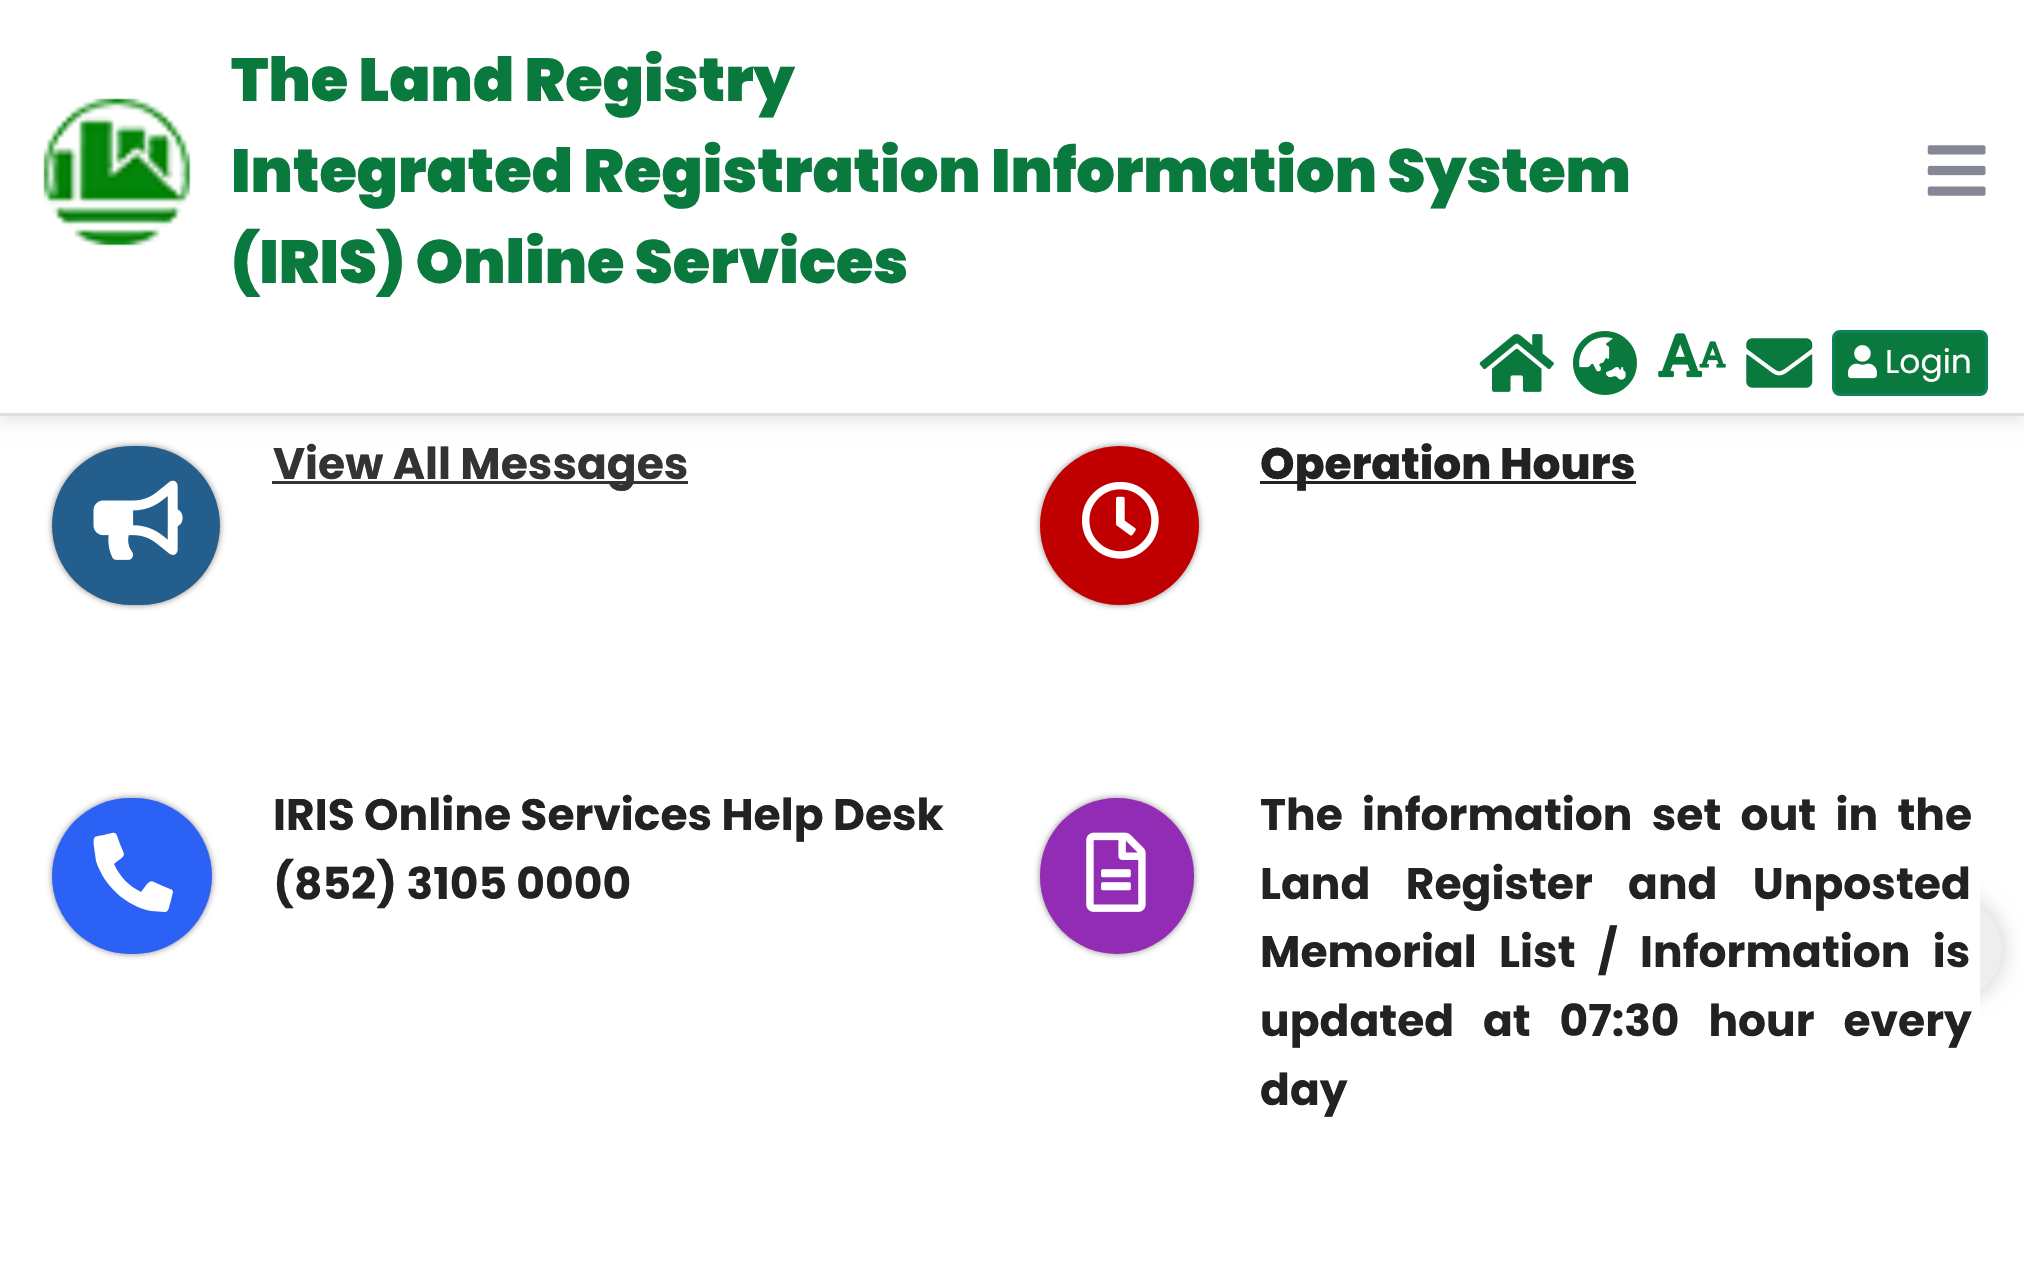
#include "include/core/SkBlurTypes.h"
#include "include/core/SkCanvas.h"
#include "include/core/SkData.h"
#include "include/core/SkFont.h"
#include "include/core/SkFontMgr.h"
#include "include/core/SkImage.h"
#include "include/core/SkMaskFilter.h"
#include "include/core/SkPaint.h"
#include "include/core/SkPathBuilder.h"
#include "include/core/SkTextBlob.h"
#include "include/effects/SkDashPathEffect.h"
#include "include/effects/SkGradientShader.h"
#include "include/utils/SkParsePath.h"

extern sk_sp<SkFontMgr> fontMgr;

void draw(SkCanvas* canvas) {
    SkPaint p;
    p.setAntiAlias(true);
    auto font = [&](const char* family, int weight, float size, bool italic = false) {
        SkFontStyle style(weight, SkFontStyle::kNormal_Width,
            italic ? SkFontStyle::kItalic_Slant : SkFontStyle::kUpright_Slant);
        SkFont result(fontMgr->matchFamilyStyle(family, style), size);
        result.setSubpixel(true);
        return result;
    };
    auto drawTracked = [&](const char* s, float x, float y, const SkFont& font, const SkPaint& ink, float letter, float word) {
        std::vector<SkGlyphID> glyphs(font.countText(s, strlen(s), SkTextEncoding::kUTF8));
        std::vector<float> xs(glyphs.size());
        font.textToGlyphs(s, strlen(s), SkTextEncoding::kUTF8, glyphs);
        font.getXPos(glyphs, xs, x);
        float extra = 0;
        for (size_t i = 0; i < glyphs.size(); i++) {
            xs[i] += extra;
            extra += letter + word * (glyphs[i] == font.unicharToGlyph(' '));
        }
        canvas->drawTextBlob(SkTextBlob::MakeFromPosHGlyphs(glyphs, xs, y, font), 0, 0, ink);
    };
    auto drawPhoto = [&](const char* path, float l, float t, float r, float b) {
        auto image = SkImages::DeferredFromEncodedData(SkData::MakeFromFileName(path));
        canvas->drawImageRect(image, SkRect::MakeLTRB(l, t, r, b), SkSamplingOptions());
    };
    canvas->clear(0xFFFFFFFF);
    p.setColor(0x1A000000);
    p.setMaskFilter(SkMaskFilter::MakeBlur(kNormal_SkBlurStyle, 8));
    canvas->drawRect(SkRect::MakeLTRB(0, 6, 2024, 421), p);
    p.setMaskFilter(nullptr);
    p.setColor(0xFFFFFFFF);
    canvas->drawRect(SkRect::MakeLTRB(0, 0, 2024, 413), p);
    p.setColor(0xFFDDDDDD);
    canvas->drawRect(SkRect::MakeLTRB(0, 413, 2024, 416), p);
    drawPhoto("media/1.png", 43, 98, 191, 246);
    auto font1 = font("Poppins", 900, 60.75f);
    p.setColor(0xFF0A793E);
    {
        const struct { const char* s; float x, y; } items[] = {
            {"The Land Registry", 231, 101},
            {"Integrated Registration Information System", 231, 192},
            {"(IRIS) Online Services", 231, 283},
        };
        for (auto [s, x, y] : items) {
            canvas->drawString(s, x, y, font1, p);
        }
    }
    drawPhoto("media/2.png", 1927, 145, 1986, 196);
    drawPhoto("media/3.png", 1479, 334, 1554, 392);
    drawPhoto("media/4.png", 1573, 331, 1637, 395);
    drawPhoto("media/5.png", 1658, 333, 1703, 378);
    drawPhoto("media/6.png", 1699, 341, 1726, 368);
    drawPhoto("media/7.png", 1746, 338, 1813, 388);
    canvas->drawRoundRect(SkRect::MakeLTRB(1833.5f, 331.5f, 1986.5f, 394.5f), 6.5f, 6.5f, p);
    p.setStyle(SkPaint::kStroke_Style);
    p.setStrokeWidth(3);
    p.setColor(0xFF108259);
    canvas->drawRoundRect(SkRect::MakeLTRB(1833.5f, 331.5f, 1986.5f, 394.5f), 6.5f, 6.5f, p);
    drawPhoto("media/8.png", 1848, 345, 1877, 379);
    auto font2 = font("Poppins", 400, 33);
    p.setStyle(SkPaint::kFill_Style);
    p.setColor(0xFFFFFFFF);
    canvas->drawString("Login", 1885, 373, font2, p);
    p.setColor(0xFF888888);
    p.setMaskFilter(SkMaskFilter::MakeBlur(kNormal_SkBlurStyle, 3));
    canvas->drawRoundRect(SkRect::MakeLTRB(52, 446, 220, 605), 79.5f, 79.5f, p);
    p.setMaskFilter(nullptr);
    p.setColor(0xFF245E8D);
    canvas->drawRoundRect(SkRect::MakeLTRB(52, 446, 220, 605), 79.5f, 79.5f, p);
    drawPhoto("media/9.png", 93, 480, 183, 560);
    p.setColor(0xFF333333);
    canvas->drawRect(SkRect::MakeLTRB(272, 481, 688, 484), p);
    auto font3 = font("Poppins", 700, 44);
    canvas->drawString("View All Messages", 273, 479, font3, p);
    p.setColor(0xFF888888);
    p.setMaskFilter(SkMaskFilter::MakeBlur(kNormal_SkBlurStyle, 3));
    canvas->drawRoundRect(SkRect::MakeLTRB(1040, 446, 1199, 605), 79.5f, 79.5f, p);
    p.setMaskFilter(nullptr);
    p.setColor(0xFFC00000);
    canvas->drawCircle(1119.5f, 525.5f, 79.5f, p);
    drawPhoto("media/10.png", 1082, 481, 1159, 559);
    p.setColor(0xFF222222);
    canvas->drawRect(SkRect::MakeLTRB(1260, 481, 1636, 484), p);
    auto font4 = font("Poppins", 800, 44);
    canvas->drawString("Operation Hours", 1260, 479, font4, p);
    p.setColor(0xFF888888);
    p.setMaskFilter(SkMaskFilter::MakeBlur(kNormal_SkBlurStyle, 3));
    canvas->drawRoundRect(SkRect::MakeLTRB(52, 798, 212, 954), 78, 78, p);
    p.setMaskFilter(nullptr);
    p.setColor(0xFF2C61F5);
    canvas->drawRoundRect(SkRect::MakeLTRB(52, 798, 212, 954), 78, 78, p);
    p.setColor(0xFFFFFFFF);
    canvas->drawPath(SkPathBuilder().moveTo(170, 889).cubicTo(172, 889, 173, 891, 173, 892).lineTo(170, 904).cubicTo(169, 906, 169, 912, 165, 912).lineTo(151, 911).cubicTo(126, 906, 104, 886, 96, 861).lineTo(94, 847).cubicTo(93, 835, 94, 837, 104, 835).cubicTo(117, 832, 115, 830, 120, 844).cubicTo(126, 858, 126, 854, 114, 864).cubicTo(120, 877, 129, 886, 141, 892).lineTo(147, 884).cubicTo(151, 880, 152, 881, 156, 883).close().detach(), p);
    p.setColor(0xFF222222);
    canvas->drawString("IRIS Online Services Help Desk", 273, 830, font3, p);
    canvas->drawString("(852) 3105 0000", 273, 899, font3, p);
    p.setColor(0x33000000);
    p.setMaskFilter(SkMaskFilter::MakeBlur(kNormal_SkBlurStyle, 11));
    canvas->drawRoundRect(SkRect::MakeLTRB(1892, 897, 2002, 1001), 52, 52, p);
    p.setMaskFilter(nullptr);
    p.setColor(0xFFEEEEEE);
    canvas->drawRoundRect(SkRect::MakeLTRB(1892, 897, 2002, 1001), 52, 52, p);
    p.setColor(0xFFFFFFFF);
    canvas->drawRoundRect(SkRect::MakeLTRB(1031, 737, 1980, 1169), 22, 22, p);
    p.setColor(0xFF888888);
    p.setMaskFilter(SkMaskFilter::MakeBlur(kNormal_SkBlurStyle, 3));
    canvas->drawRoundRect(SkRect::MakeLTRB(1040, 798, 1194, 954), 77, 77, p);
    p.setMaskFilter(nullptr);
    p.setColor(0xFF932CB5);
    canvas->drawRoundRect(SkRect::MakeLTRB(1040, 798, 1194, 954), 77, 77, p);
    drawPhoto("media/11.png", 1086, 832, 1146, 912);
    p.setColor(0xFF222222);
    drawTracked("The information set out in the", 1260, 830, font3, p, 0, 10);
    drawTracked("Land Register and Unposted", 1260, 899, font3, p, 0, 26);
    drawTracked("Memorial List / Information is", 1260, 967, font3, p, 0, 13);
    drawTracked("updated at 07:30 hour every", 1260, 1036, font3, p, 0, 19.5f);
    canvas->drawString("day", 1260, 1105, font3, p);
}
